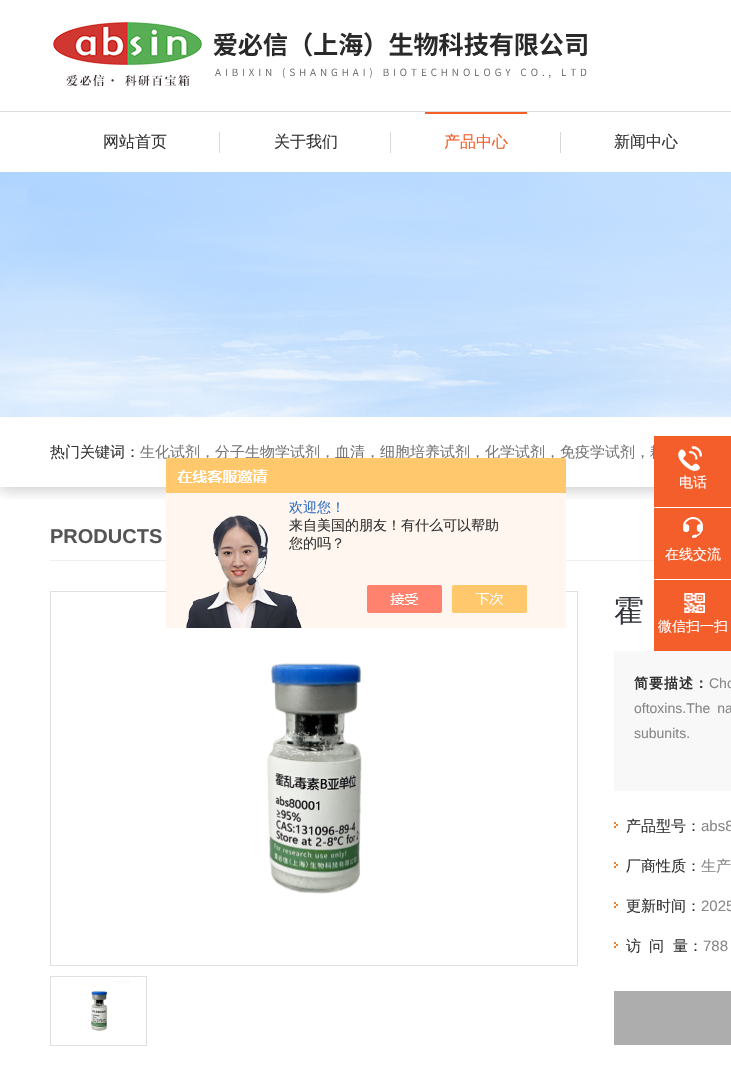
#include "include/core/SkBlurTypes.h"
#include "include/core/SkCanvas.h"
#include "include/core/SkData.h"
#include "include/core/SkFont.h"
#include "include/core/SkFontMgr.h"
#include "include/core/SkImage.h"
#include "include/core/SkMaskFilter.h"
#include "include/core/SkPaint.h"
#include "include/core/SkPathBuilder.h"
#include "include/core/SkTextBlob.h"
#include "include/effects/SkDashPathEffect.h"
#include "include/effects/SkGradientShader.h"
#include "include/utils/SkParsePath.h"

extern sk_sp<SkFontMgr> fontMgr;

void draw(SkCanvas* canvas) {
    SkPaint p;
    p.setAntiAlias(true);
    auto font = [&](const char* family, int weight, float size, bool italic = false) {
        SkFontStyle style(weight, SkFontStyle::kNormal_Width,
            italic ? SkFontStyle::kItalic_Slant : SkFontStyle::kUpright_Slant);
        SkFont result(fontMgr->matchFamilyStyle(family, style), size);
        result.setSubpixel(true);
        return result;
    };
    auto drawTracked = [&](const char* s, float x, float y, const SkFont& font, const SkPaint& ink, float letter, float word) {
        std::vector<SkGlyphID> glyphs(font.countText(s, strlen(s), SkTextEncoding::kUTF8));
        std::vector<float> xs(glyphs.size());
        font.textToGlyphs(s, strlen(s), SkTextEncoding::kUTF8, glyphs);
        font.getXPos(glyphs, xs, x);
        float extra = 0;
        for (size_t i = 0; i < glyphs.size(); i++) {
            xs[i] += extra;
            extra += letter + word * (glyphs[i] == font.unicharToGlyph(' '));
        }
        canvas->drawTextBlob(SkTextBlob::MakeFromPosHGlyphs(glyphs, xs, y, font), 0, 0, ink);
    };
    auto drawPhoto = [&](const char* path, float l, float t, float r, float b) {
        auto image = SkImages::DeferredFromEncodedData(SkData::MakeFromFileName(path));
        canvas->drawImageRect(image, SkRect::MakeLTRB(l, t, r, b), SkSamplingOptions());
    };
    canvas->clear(0xFFFFFFFF);
    drawPhoto("media/1.png", 50, 16, 587, 88);
    p.setColor(0xFFDEDEDE);
    canvas->drawRect(SkRect::MakeLTRB(0, 111, 731, 112), p);
    auto font1 = font("WenQuanYi Zen Hei", 500, 16);
    p.setColor(0xFF333333);
    canvas->drawString("网站首页", 103, 147, font1, p);
    p.setColor(0xFFD9D9D8);
    canvas->drawRect(SkRect::MakeLTRB(219, 132, 220, 153), p);
    p.setColor(0xFF333333);
    canvas->drawString("关于我们", 274, 147, font1, p);
    p.setColor(0xFFD9D9D8);
    canvas->drawRect(SkRect::MakeLTRB(390, 132, 391, 153), p);
    p.setColor(0xFFF45E2B);
    canvas->drawRect(SkRect::MakeLTRB(425, 112, 527, 114), p);
    canvas->drawString("产品中心", 444, 147, font1, p);
    p.setColor(0xFFD9D9D8);
    canvas->drawRect(SkRect::MakeLTRB(560, 132, 561, 153), p);
    p.setColor(0xFF333333);
    canvas->drawString("新闻中心", 614, 147, font1, p);
    canvas->save();
    canvas->clipRect(SkRect::MakeLTRB(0, 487, 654, 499));
    p.setColor(0x33000000);
    p.setMaskFilter(SkMaskFilter::MakeBlur(kNormal_SkBlurStyle, 7));
    canvas->drawRect(SkRect::MakeLTRB(0, 420, 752, 490), p);
    p.setMaskFilter(nullptr);
    canvas->restore();
    drawPhoto("media/2.png", 0, 172, 731, 417);
    auto font2 = font("WenQuanYi Zen Hei", 500, 15);
    p.setColor(0xFF333333);
    canvas->drawString("热门关键词：", 50, 457, font2, p);
    p.setColor(0xFF777777);
    canvas->drawString("生化试剂，分子生物学试剂，血清，细胞培养试剂，化学试剂，免疫学试剂，耗", 140, 457, font2, p);
    p.setColor(0xFFEFEFEF);
    canvas->drawRect(SkRect::MakeLTRB(50, 560, 654, 561), p);
    p.setStyle(SkPaint::kStroke_Style);
    p.setStrokeWidth(1);
    p.setColor(0xFFDFDFDF);
    canvas->drawRect(SkRect::MakeLTRB(50.5f, 591.5f, 577.5f, 965.5f), p);
    drawPhoto("media/3.png", 166, 458, 566, 628);
    auto font3 = font("WenQuanYi Zen Hei", 500, 14);
    p.setStyle(SkPaint::kFill_Style);
    p.setColor(0xFF2E6EC6);
    canvas->drawString("欢迎您！", 289, 512, font3, p);
    p.setColor(0xFF333333);
    canvas->drawString("来自美国的朋友！有什么可以帮助", 289, 530, font3, p);
    canvas->drawString("您的吗？", 289, 548, font3, p);
    p.setColor(0xFFF45E2B);
    canvas->drawRect(SkRect::MakeLTRB(654, 436, 731, 507), p);
    drawPhoto("media/4.png", 678, 446, 702, 471);
    p.setColor(0xFFFFFFFF);
    canvas->drawString("电话", 679, 487, font3, p);
    p.setColor(0xFFF45E2B);
    canvas->drawRect(SkRect::MakeLTRB(654, 508, 731, 579), p);
    drawPhoto("media/5.png", 683, 517, 703, 538);
    p.setColor(0xFFFFFFFF);
    canvas->drawString("在线交流", 665, 559, font3, p);
    p.setColor(0xFFF45E2B);
    canvas->drawRect(SkRect::MakeLTRB(654, 580, 731, 651), p);
    drawPhoto("media/6.png", 684, 593, 705, 613);
    p.setColor(0xFFFFFFFF);
    canvas->drawString("微信扫一扫", 658, 631, font3, p);
    auto font4 = font("Liberation Sans", 700, 20);
    p.setColor(0xFF555555);
    canvas->drawString("PRODUCTS", 50, 543, font4, p);
    drawPhoto("media/7.png", 267, 628, 495, 894);
    p.setStyle(SkPaint::kStroke_Style);
    p.setColor(0xFFDFDFDF);
    canvas->drawRect(SkRect::MakeLTRB(50.5f, 976.5f, 146.5f, 1045.5f), p);
    drawPhoto("media/8.png", 91, 981, 130, 1031);
    auto font5 = font("WenQuanYi Zen Hei", 500, 30);
    p.setStyle(SkPaint::kFill_Style);
    p.setColor(0xFF32353A);
    canvas->drawString("霍", 614, 621, font5, p);
    p.setColor(0xFFF8F8F8);
    canvas->drawRect(SkRect::MakeLTRB(614, 651, 731, 791), p);
    auto font6 = font("WenQuanYi Zen Hei", 700, 14);
    p.setColor(0xFF333333);
    drawTracked("简要描述：", 634, 688, font6, p, 1, 0);
    auto font7 = font("Liberation Sans", 400, 14);
    p.setColor(0xFF888888);
    drawTracked("Cho", 709, 688, font7, p, 0, 2);
    drawTracked("oftoxins.The na", 634, 713, font7, p, 0, 3);
    canvas->drawString("subunits.", 634, 738, font7, p);
    drawPhoto("media/9.png", 614, 822, 618, 828);
    p.setColor(0xFF333333);
    canvas->drawString("产品型号：", 626, 831, font2, p);
    auto font8 = font("Liberation Sans", 400, 15);
    p.setColor(0xFF888888);
    canvas->drawString("abs8", 701, 831, font8, p);
    drawPhoto("media/9.png", 614, 862, 618, 868);
    p.setColor(0xFF333333);
    canvas->drawString("厂商性质：", 626, 871, font2, p);
    p.setColor(0xFF888888);
    canvas->drawString("生产", 701, 871, font2, p);
    drawPhoto("media/9.png", 614, 902, 618, 908);
    p.setColor(0xFF333333);
    canvas->drawString("更新时间：", 626, 911, font2, p);
    p.setColor(0xFF888888);
    canvas->drawString("2025", 701, 911, font8, p);
    drawPhoto("media/9.png", 614, 942, 618, 948);
    p.setColor(0xFF333333);
    {
        const struct { const char* s; float x, y; } items[] = {
            {"访", 626, 951},
            {"问", 649, 951},
            {"量：", 673, 951},
        };
        for (auto [s, x, y] : items) {
            canvas->drawString(s, x, y, font2, p);
        }
    }
    p.setColor(0xFF888888);
    canvas->drawString("788", 703, 951, font8, p);
    p.setColor(0xFFADADAD);
    canvas->drawRect(SkRect::MakeLTRB(614, 991, 731, 1045), p);
}
